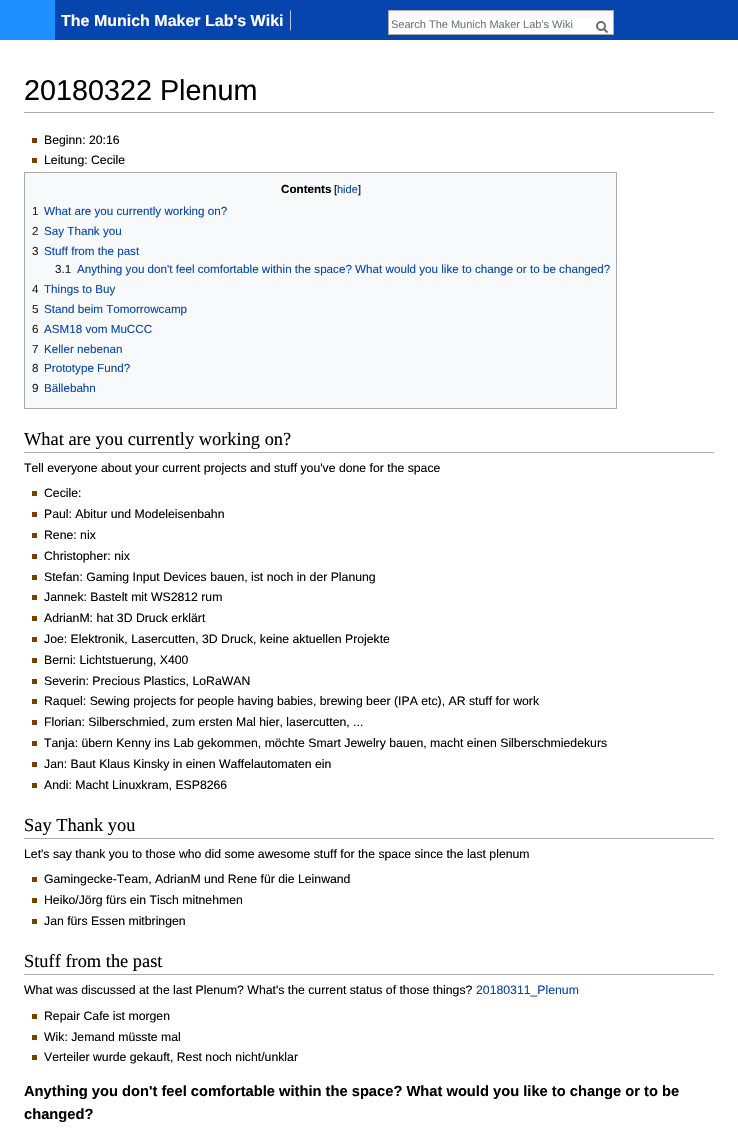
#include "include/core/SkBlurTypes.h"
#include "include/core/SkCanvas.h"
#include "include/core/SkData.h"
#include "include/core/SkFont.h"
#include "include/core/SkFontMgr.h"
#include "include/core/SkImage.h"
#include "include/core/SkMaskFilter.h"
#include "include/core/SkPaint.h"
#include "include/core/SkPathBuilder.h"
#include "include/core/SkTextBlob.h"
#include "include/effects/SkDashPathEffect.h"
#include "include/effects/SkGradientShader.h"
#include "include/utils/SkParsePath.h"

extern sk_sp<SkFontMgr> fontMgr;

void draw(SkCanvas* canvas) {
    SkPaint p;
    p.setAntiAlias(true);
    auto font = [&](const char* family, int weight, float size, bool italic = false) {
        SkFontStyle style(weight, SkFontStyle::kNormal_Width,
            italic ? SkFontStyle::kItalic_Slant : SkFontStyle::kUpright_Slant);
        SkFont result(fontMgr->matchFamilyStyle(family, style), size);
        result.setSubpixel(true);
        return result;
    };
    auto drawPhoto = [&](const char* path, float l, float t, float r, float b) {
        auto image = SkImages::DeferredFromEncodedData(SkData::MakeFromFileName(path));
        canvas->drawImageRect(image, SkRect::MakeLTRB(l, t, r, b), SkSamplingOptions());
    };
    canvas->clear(0xFFFFFFFF);
    p.setColor(0xFF0645AD);
    canvas->drawRect(SkRect::MakeLTRB(55, 0, 738, 40), p);
    p.setColor(0xFF1E90FF);
    canvas->drawRect(SkRect::MakeLTRB(0, 0, 55, 40), p);
    auto font1 = font("Liberation Sans", 700, 16);
    p.setColor(0xFFFFFFFF);
    canvas->drawString("The Munich Maker Lab's Wiki", 61, 26, font1, p);
    drawPhoto("media/1.png", 290, 10, 291, 31);
    canvas->drawRect(SkRect::MakeLTRB(389, 19, 613, 34), p);
    drawPhoto("media/2.png", 389, 11, 613, 19);
    p.setStyle(SkPaint::kStroke_Style);
    p.setStrokeWidth(1);
    p.setColor(0xFFAAAAAA);
    canvas->drawRect(SkRect::MakeLTRB(388.5f, 10.5f, 613.5f, 34.5f), p);
    auto font2 = font("Liberation Sans", 400, 11);
    p.setStyle(SkPaint::kFill_Style);
    p.setColor(0xFF72777D);
    canvas->drawString("Search The Munich Maker Lab's Wiki", 391, 28, font2, p);
    p.setStyle(SkPaint::kStroke_Style);
    p.setStrokeWidth(2);
    p.setColor(0xFF6C6C6C);
    canvas->drawPath(SkPathBuilder().moveTo(607.5f, 32.5f).lineTo(603.5f, 28.5f).detach(), p);
    canvas->drawCircle(601, 26, 4, p);
    p.setStyle(SkPaint::kFill_Style);
    p.setColor(0xFFAAAAAA);
    canvas->drawRect(SkRect::MakeLTRB(24, 112, 714, 113), p);
    auto font3 = font("Liberation Sans", 400, 28.75f);
    p.setColor(0xFF000000);
    canvas->drawString("20180322 Plenum", 24, 100, font3, p);
    p.setColor(0xFF784000);
    canvas->drawRect(SkRect::MakeLTRB(32, 138, 37, 143), p);
    auto font4 = font("Liberation Sans", 400, 12.25f);
    p.setColor(0xFF000000);
    canvas->drawString("Beginn: 20:16", 44, 144, font4, p);
    p.setColor(0xFF784000);
    canvas->drawRect(SkRect::MakeLTRB(32, 158, 37, 163), p);
    p.setColor(0xFF000000);
    canvas->drawString("Leitung: Cecile", 44, 164, font4, p);
    p.setColor(0xFFF8F9FA);
    canvas->drawRect(SkRect::MakeLTRB(24.5f, 172.5f, 616.5f, 408.5f), p);
    p.setStyle(SkPaint::kStroke_Style);
    p.setStrokeWidth(1);
    p.setColor(0xFFAAAAAA);
    canvas->drawRect(SkRect::MakeLTRB(24.5f, 172.5f, 616.5f, 408.5f), p);
    auto font5 = font("Liberation Sans", 700, 11.65f);
    p.setStyle(SkPaint::kFill_Style);
    p.setColor(0xFF000000);
    canvas->drawString("Contents", 281, 193, font5, p);
    canvas->drawString("[", 334, 193, font2, p);
    p.setColor(0xFF0645AD);
    canvas->drawString("hide", 337, 193, font2, p);
    p.setColor(0xFF000000);
    canvas->drawString("]", 358, 193, font2, p);
    auto font6 = font("Liberation Sans", 400, 11.65f);
    p.setColor(0xFF222222);
    canvas->drawString("1", 32, 215, font6, p);
    p.setColor(0xFF0645AD);
    canvas->drawString("What are you currently working on?", 44, 215, font6, p);
    p.setColor(0xFF222222);
    canvas->drawString("2", 32, 235, font6, p);
    p.setColor(0xFF0645AD);
    canvas->drawString("Say Thank you", 44, 235, font6, p);
    p.setColor(0xFF222222);
    canvas->drawString("3", 32, 255, font6, p);
    p.setColor(0xFF0645AD);
    canvas->drawString("Stuff from the past", 44, 255, font6, p);
    p.setColor(0xFF222222);
    canvas->drawString("3.1", 55, 273, font6, p);
    p.setColor(0xFF0645AD);
    canvas->drawString("Anything you don't feel comfortable within the space? What would you like to change or to be changed?", 77, 273, font6, p);
    p.setColor(0xFF222222);
    canvas->drawString("4", 32, 293, font6, p);
    p.setColor(0xFF0645AD);
    canvas->drawString("Things to Buy", 44, 293, font6, p);
    p.setColor(0xFF222222);
    canvas->drawString("5", 32, 313, font6, p);
    p.setColor(0xFF0645AD);
    canvas->drawString("Stand beim Tomorrowcamp", 44, 313, font6, p);
    p.setColor(0xFF222222);
    canvas->drawString("6", 32, 333, font6, p);
    p.setColor(0xFF0645AD);
    canvas->drawString("ASM18 vom MuCCC", 44, 333, font6, p);
    p.setColor(0xFF222222);
    canvas->drawString("7", 32, 353, font6, p);
    p.setColor(0xFF0645AD);
    canvas->drawString("Keller nebenan", 44, 353, font6, p);
    p.setColor(0xFF222222);
    canvas->drawString("8", 32, 372, font6, p);
    p.setColor(0xFF0645AD);
    canvas->drawString("Prototype Fund?", 44, 372, font6, p);
    p.setColor(0xFF222222);
    canvas->drawString("9", 32, 392, font6, p);
    p.setColor(0xFF0645AD);
    canvas->drawString("Bällebahn", 44, 392, font6, p);
    p.setColor(0xFFAAAAAA);
    canvas->drawRect(SkRect::MakeLTRB(24, 452, 714, 453), p);
    auto font7 = font("Liberation Serif", 400, 18.4f);
    p.setColor(0xFF000000);
    canvas->drawString("What are you currently working on?", 24, 445, font7, p);
    canvas->drawString("Tell everyone about your current projects and stuff you've done for the space", 24, 472, font4, p);
    p.setColor(0xFF784000);
    canvas->drawRect(SkRect::MakeLTRB(32, 491, 37, 496), p);
    p.setColor(0xFF000000);
    canvas->drawString("Cecile:", 44, 497, font4, p);
    p.setColor(0xFF784000);
    canvas->drawRect(SkRect::MakeLTRB(32, 512, 37, 517), p);
    p.setColor(0xFF000000);
    canvas->drawString("Paul: Abitur und Modeleisenbahn", 44, 518, font4, p);
    p.setColor(0xFF784000);
    canvas->drawRect(SkRect::MakeLTRB(32, 533, 37, 538), p);
    p.setColor(0xFF000000);
    canvas->drawString("Rene: nix", 44, 539, font4, p);
    p.setColor(0xFF784000);
    canvas->drawRect(SkRect::MakeLTRB(32, 554, 37, 559), p);
    p.setColor(0xFF000000);
    canvas->drawString("Christopher: nix", 44, 560, font4, p);
    p.setColor(0xFF784000);
    canvas->drawRect(SkRect::MakeLTRB(32, 575, 37, 580), p);
    p.setColor(0xFF000000);
    canvas->drawString("Stefan: Gaming Input Devices bauen, ist noch in der Planung", 44, 581, font4, p);
    p.setColor(0xFF784000);
    canvas->drawRect(SkRect::MakeLTRB(32, 595, 37, 600), p);
    p.setColor(0xFF000000);
    canvas->drawString("Jannek: Bastelt mit WS2812 rum", 44, 601, font4, p);
    p.setColor(0xFF784000);
    canvas->drawRect(SkRect::MakeLTRB(32, 616, 37, 621), p);
    p.setColor(0xFF000000);
    canvas->drawString("AdrianM: hat 3D Druck erklärt", 44, 622, font4, p);
    p.setColor(0xFF784000);
    canvas->drawRect(SkRect::MakeLTRB(32, 637, 37, 642), p);
    p.setColor(0xFF000000);
    canvas->drawString("Joe: Elektronik, Lasercutten, 3D Druck, keine aktuellen Projekte", 44, 643, font4, p);
    p.setColor(0xFF784000);
    canvas->drawRect(SkRect::MakeLTRB(32, 658, 37, 663), p);
    p.setColor(0xFF000000);
    canvas->drawString("Berni: Lichtstuerung, X400", 44, 664, font4, p);
    p.setColor(0xFF784000);
    canvas->drawRect(SkRect::MakeLTRB(32, 679, 37, 684), p);
    p.setColor(0xFF000000);
    canvas->drawString("Severin: Precious Plastics, LoRaWAN", 44, 685, font4, p);
    p.setColor(0xFF784000);
    canvas->drawRect(SkRect::MakeLTRB(32, 699, 37, 704), p);
    p.setColor(0xFF000000);
    canvas->drawString("Raquel: Sewing projects for people having babies, brewing beer (IPA etc), AR stuff for work", 44, 705, font4, p);
    p.setColor(0xFF784000);
    canvas->drawRect(SkRect::MakeLTRB(32, 720, 37, 725), p);
    p.setColor(0xFF000000);
    canvas->drawString("Florian: Silberschmied, zum ersten Mal hier, lasercutten, ...", 44, 726, font4, p);
    p.setColor(0xFF784000);
    canvas->drawRect(SkRect::MakeLTRB(32, 741, 37, 746), p);
    p.setColor(0xFF000000);
    canvas->drawString("Tanja: übern Kenny ins Lab gekommen, möchte Smart Jewelry bauen, macht einen Silberschmiedekurs", 44, 747, font4, p);
    p.setColor(0xFF784000);
    canvas->drawRect(SkRect::MakeLTRB(32, 762, 37, 767), p);
    p.setColor(0xFF000000);
    canvas->drawString("Jan: Baut Klaus Kinsky in einen Waffelautomaten ein", 44, 768, font4, p);
    p.setColor(0xFF784000);
    canvas->drawRect(SkRect::MakeLTRB(32, 783, 37, 788), p);
    p.setColor(0xFF000000);
    canvas->drawString("Andi: Macht Linuxkram, ESP8266", 44, 789, font4, p);
    p.setColor(0xFFAAAAAA);
    canvas->drawRect(SkRect::MakeLTRB(24, 838, 714, 839), p);
    p.setColor(0xFF000000);
    canvas->drawString("Say Thank you", 24, 831, font7, p);
    canvas->drawString("Let's say thank you to those who did some awesome stuff for the space since the last plenum", 24, 858, font4, p);
    p.setColor(0xFF784000);
    canvas->drawRect(SkRect::MakeLTRB(32, 877, 37, 882), p);
    p.setColor(0xFF000000);
    canvas->drawString("Gamingecke-Team, AdrianM und Rene für die Leinwand", 44, 883, font4, p);
    p.setColor(0xFF784000);
    canvas->drawRect(SkRect::MakeLTRB(32, 898, 37, 903), p);
    p.setColor(0xFF000000);
    canvas->drawString("Heiko/Jörg fürs ein Tisch mitnehmen", 44, 904, font4, p);
    p.setColor(0xFF784000);
    canvas->drawRect(SkRect::MakeLTRB(32, 919, 37, 924), p);
    p.setColor(0xFF000000);
    canvas->drawString("Jan fürs Essen mitbringen", 44, 925, font4, p);
    p.setColor(0xFFAAAAAA);
    canvas->drawRect(SkRect::MakeLTRB(24, 974, 714, 975), p);
    p.setColor(0xFF000000);
    canvas->drawString("Stuff from the past", 24, 967, font7, p);
    canvas->drawString("What was discussed at the last Plenum? What's the current status of those things?", 24, 994, font4, p);
    p.setColor(0xFF0645AD);
    canvas->drawString("20180311_Plenum", 476, 994, font4, p);
    p.setColor(0xFF784000);
    canvas->drawRect(SkRect::MakeLTRB(32, 1014, 37, 1019), p);
    p.setColor(0xFF000000);
    canvas->drawString("Repair Cafe ist morgen", 44, 1020, font4, p);
    p.setColor(0xFF784000);
    canvas->drawRect(SkRect::MakeLTRB(32, 1035, 37, 1040), p);
    p.setColor(0xFF000000);
    canvas->drawString("Wik: Jemand müsste mal", 44, 1041, font4, p);
    p.setColor(0xFF784000);
    canvas->drawRect(SkRect::MakeLTRB(32, 1055, 37, 1060), p);
    p.setColor(0xFF000000);
    canvas->drawString("Verteiler wurde gekauft, Rest noch nicht/unklar", 44, 1061, font4, p);
    auto font8 = font("Liberation Sans", 700, 14.7f);
    canvas->drawString("Anything you don't feel comfortable within the space? What would you like to change or to be", 24, 1096, font8, p);
    canvas->drawString("changed?", 24, 1119, font8, p);
}
